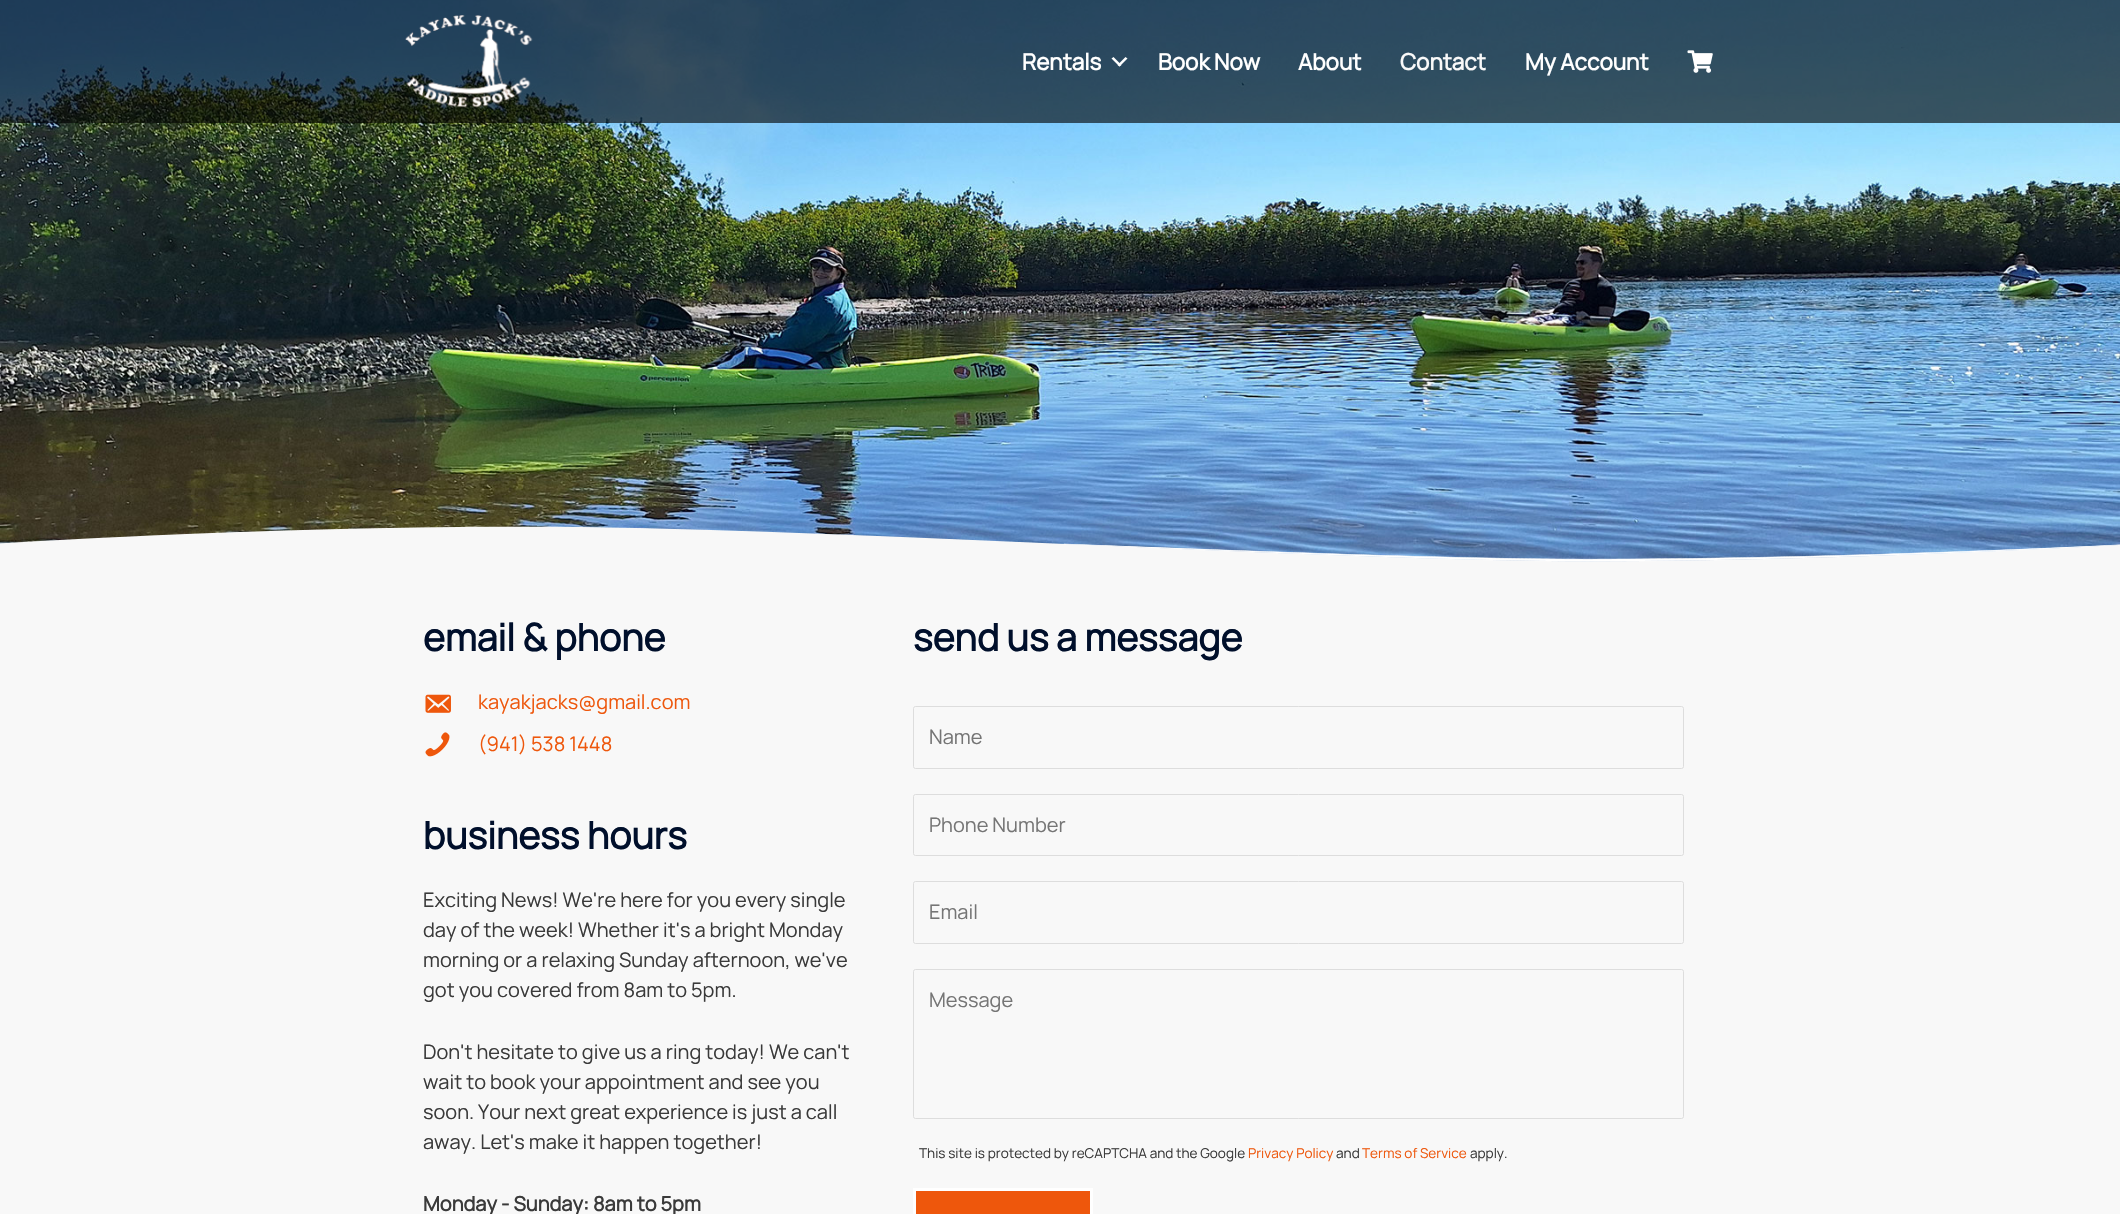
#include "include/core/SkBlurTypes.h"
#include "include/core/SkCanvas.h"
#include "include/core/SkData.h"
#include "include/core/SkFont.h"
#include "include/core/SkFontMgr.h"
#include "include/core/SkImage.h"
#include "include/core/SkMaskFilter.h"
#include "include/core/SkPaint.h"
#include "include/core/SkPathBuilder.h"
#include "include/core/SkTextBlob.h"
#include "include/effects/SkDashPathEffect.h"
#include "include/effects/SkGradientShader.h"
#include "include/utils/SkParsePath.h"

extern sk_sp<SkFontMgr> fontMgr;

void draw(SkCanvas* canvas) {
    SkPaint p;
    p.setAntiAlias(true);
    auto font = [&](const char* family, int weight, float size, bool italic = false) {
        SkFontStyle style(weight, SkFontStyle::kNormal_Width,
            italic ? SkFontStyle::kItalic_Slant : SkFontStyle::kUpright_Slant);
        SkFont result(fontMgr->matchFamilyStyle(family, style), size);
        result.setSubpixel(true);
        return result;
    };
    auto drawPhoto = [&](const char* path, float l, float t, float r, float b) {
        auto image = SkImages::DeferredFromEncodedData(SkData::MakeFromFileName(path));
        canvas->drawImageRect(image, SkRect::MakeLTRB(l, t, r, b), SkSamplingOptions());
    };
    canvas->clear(0xFFF8F8F8);
    drawPhoto("media/3.png", 0, 0, 2120, 562);
    p.setColor(0x9E000000);
    canvas->drawRect(SkRect::MakeLTRB(0, 0, 2120, 123), p);
    drawPhoto("media/1.png", 405, 15, 533, 108);
    auto font1 = font("Manrope", 700, 22.5f);
    p.setColor(0xFFFFFFFF);
    canvas->drawString("Rentals", 1022, 70, font1, p);
    canvas->drawPath(SkPathBuilder().moveTo(1125.5f, 57).lineTo(1127.5f, 58.5f).lineTo(1119.5f, 66.5f).lineTo(1117.5f, 65).close().detach(), p);
    canvas->drawPath(SkPathBuilder().moveTo(1113.5f, 57).lineTo(1121.5f, 65).lineTo(1119.5f, 66.5f).lineTo(1111.5f, 58.5f).close().detach(), p);
    canvas->drawString("Book Now", 1158, 70, font1, p);
    canvas->drawString("About", 1298, 70, font1, p);
    p.setColor(0xFFF9F9F9);
    canvas->drawString("Contact", 1400, 70, font1, p);
    p.setColor(0xFFFFFFFF);
    canvas->drawString("My Account", 1525, 70, font1, p);
    drawPhoto("media/2.png", 1687, 50, 1713, 73);
    drawPhoto("media/4.png", 0, 526, 2120, 563);
    auto font2 = font("Manrope", 700, 37.5f);
    p.setColor(0xFF000F2B);
    canvas->drawString("email & phone", 423, 651, font2, p);
    drawPhoto("media/5.png", 425, 694, 451, 713);
    auto font3 = font("Manrope", 200, 20);
    p.setColor(0xFFEE570C);
    canvas->drawString("kayakjacks@gmail.com", 478, 709, font3, p);
    drawPhoto("media/6.png", 425, 732, 450, 757);
    canvas->drawString("(941) 538 1448", 478, 751, font3, p);
    p.setColor(0xFF000F2B);
    canvas->drawString("business hours", 423, 849, font2, p);
    p.setColor(0xFF3A3A3A);
    {
        const struct { const char* s; float x, y; } items[] = {
            {"Exciting News! We're here for you every single", 423, 907},
            {"day of the week! Whether it's a bright Monday", 423, 937},
            {"morning or a relaxing Sunday afternoon, we've", 423, 967},
            {"got you covered from 8am to 5pm.", 423, 997},
            {"Don't hesitate to give us a ring today! We can't", 423, 1059},
            {"wait to book your appointment and see you", 423, 1089},
            {"soon. Your next great experience is just a call", 423, 1119},
            {"away. Let's make it happen together!", 423, 1149},
        };
        for (auto [s, x, y] : items) {
            canvas->drawString(s, x, y, font3, p);
        }
    }
    auto font4 = font("Manrope", 700, 20);
    canvas->drawString("Monday - Sunday: 8am to 5pm", 423, 1211, font4, p);
    p.setColor(0xFF000F2B);
    canvas->drawString("send us a message", 913, 651, font2, p);
    p.setStyle(SkPaint::kStroke_Style);
    p.setStrokeWidth(1);
    p.setColor(0xFFDDDDDD);
    canvas->drawRoundRect(SkRect::MakeLTRB(913.5f, 706.5f, 1683.5f, 768.5f), 2, 2, p);
    p.setStyle(SkPaint::kFill_Style);
    p.setColor(0xFF757575);
    canvas->drawString("Name", 929, 744, font3, p);
    p.setStyle(SkPaint::kStroke_Style);
    p.setColor(0xFFDDDDDD);
    canvas->drawRoundRect(SkRect::MakeLTRB(913.5f, 794.5f, 1683.5f, 855.5f), 2, 2, p);
    p.setStyle(SkPaint::kFill_Style);
    p.setColor(0xFF757575);
    canvas->drawString("Phone Number", 929, 832, font3, p);
    p.setStyle(SkPaint::kStroke_Style);
    p.setColor(0xFFDDDDDD);
    canvas->drawRoundRect(SkRect::MakeLTRB(913.5f, 881.5f, 1683.5f, 943.5f), 2, 2, p);
    p.setStyle(SkPaint::kFill_Style);
    p.setColor(0xFF757575);
    canvas->drawString("Email", 929, 919, font3, p);
    p.setStyle(SkPaint::kStroke_Style);
    p.setColor(0xFFDDDDDD);
    canvas->drawRoundRect(SkRect::MakeLTRB(913.5f, 969.5f, 1683.5f, 1118.5f), 2, 2, p);
    p.setStyle(SkPaint::kFill_Style);
    p.setColor(0xFF757575);
    canvas->drawString("Message", 929, 1007, font3, p);
    auto font5 = font("Manrope", 200, 13.6f);
    p.setColor(0xFF3A3A3A);
    canvas->drawString("This site is protected by reCAPTCHA and the Google", 919, 1158, font5, p);
    p.setColor(0xFFEE570C);
    canvas->drawString("Privacy Policy", 1248, 1158, font5, p);
    p.setColor(0xFF3A3A3A);
    canvas->drawString("and", 1336, 1158, font5, p);
    p.setColor(0xFFEE570C);
    canvas->drawString("Terms of Service", 1362, 1158, font5, p);
    p.setColor(0xFF3A3A3A);
    canvas->drawString("apply.", 1470, 1158, font5, p);
    p.setColor(0xFFEE570C);
    canvas->drawRect(SkRect::MakeLTRB(914.5f, 1189.5f, 1091.5f, 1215.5f), p);
    p.setStyle(SkPaint::kStroke_Style);
    p.setStrokeWidth(3);
    p.setColor(0xFFFFFFFF);
    canvas->drawRect(SkRect::MakeLTRB(914.5f, 1189.5f, 1091.5f, 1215.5f), p);
}
